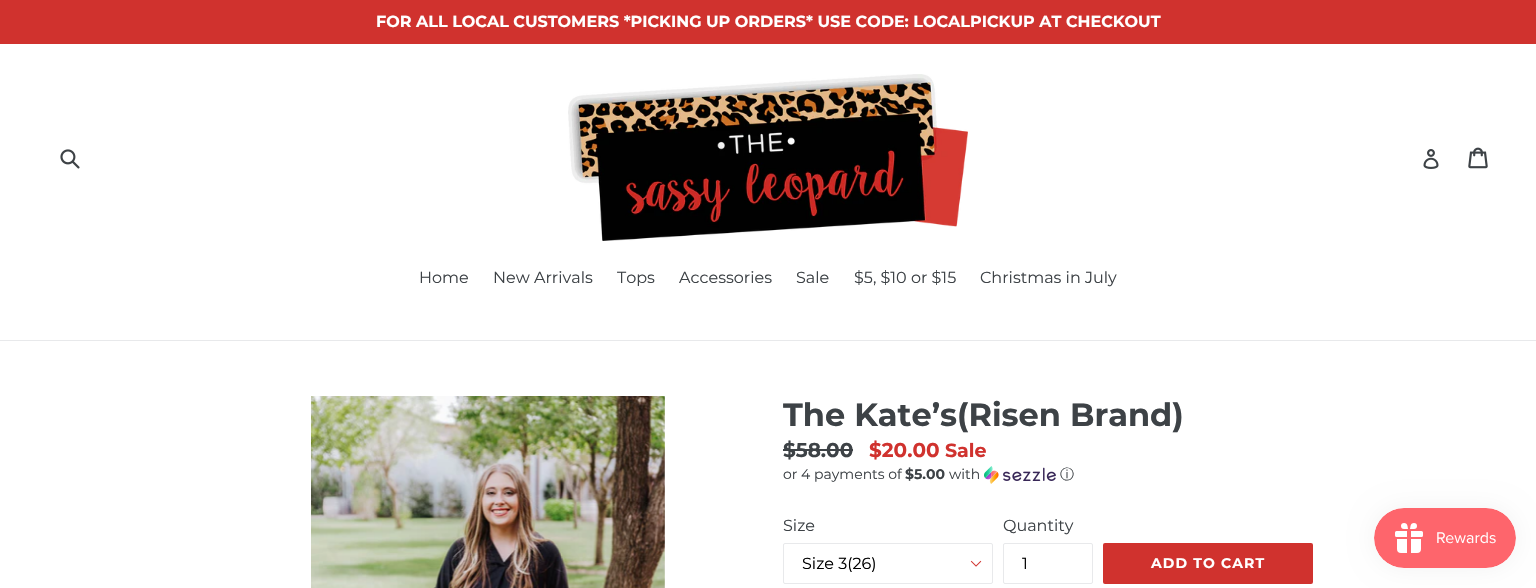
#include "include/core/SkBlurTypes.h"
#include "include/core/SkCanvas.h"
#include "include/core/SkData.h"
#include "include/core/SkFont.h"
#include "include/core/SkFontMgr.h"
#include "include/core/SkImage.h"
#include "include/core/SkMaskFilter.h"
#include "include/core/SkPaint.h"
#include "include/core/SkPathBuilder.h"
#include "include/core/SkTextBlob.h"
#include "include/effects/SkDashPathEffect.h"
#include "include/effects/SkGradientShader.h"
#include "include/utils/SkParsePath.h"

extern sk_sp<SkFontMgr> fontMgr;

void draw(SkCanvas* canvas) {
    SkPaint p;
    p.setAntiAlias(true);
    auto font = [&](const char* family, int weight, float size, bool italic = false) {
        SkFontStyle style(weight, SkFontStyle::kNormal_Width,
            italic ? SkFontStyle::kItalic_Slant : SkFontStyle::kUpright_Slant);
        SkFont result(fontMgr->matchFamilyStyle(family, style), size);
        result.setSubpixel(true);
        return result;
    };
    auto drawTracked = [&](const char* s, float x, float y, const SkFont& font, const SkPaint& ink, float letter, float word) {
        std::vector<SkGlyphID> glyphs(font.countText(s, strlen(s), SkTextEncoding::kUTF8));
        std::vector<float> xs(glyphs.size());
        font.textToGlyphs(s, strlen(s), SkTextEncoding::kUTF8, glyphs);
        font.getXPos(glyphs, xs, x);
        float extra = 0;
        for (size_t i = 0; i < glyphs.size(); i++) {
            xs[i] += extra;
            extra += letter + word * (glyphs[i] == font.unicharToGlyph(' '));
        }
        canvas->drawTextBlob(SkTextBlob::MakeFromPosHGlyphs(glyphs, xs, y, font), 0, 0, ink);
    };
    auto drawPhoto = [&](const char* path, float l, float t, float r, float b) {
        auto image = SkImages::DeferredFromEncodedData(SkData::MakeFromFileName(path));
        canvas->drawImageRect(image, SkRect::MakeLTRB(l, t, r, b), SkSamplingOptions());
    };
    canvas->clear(0xFFFFFFFF);
    p.setColor(0xFFD0322E);
    canvas->drawRect(SkRect::MakeLTRB(0, 0, 1536, 44), p);
    auto font1 = font("Montserrat", 700, 16);
    p.setColor(0xFFFFFFFF);
    canvas->drawString("FOR ALL LOCAL CUSTOMERS *PICKING UP ORDERS* USE CODE: LOCALPICKUP AT CHECKOUT", 376, 27, font1, p);
    drawPhoto("media/1.png", 60, 149, 80, 169);
    drawPhoto("media/2.png", 568, 74, 968, 241);
    drawPhoto("media/3.png", 1423, 149, 1439, 169);
    drawPhoto("media/4.png", 1468, 147, 1488, 169);
    p.setColor(0xFFE8E9EB);
    canvas->drawRect(SkRect::MakeLTRB(0, 340, 1536, 341), p);
    auto font2 = font("Montserrat", 400, 16);
    p.setColor(0xFF3D4246);
    {
        const struct { const char* s; float x, y; } items[] = {
            {"Home", 419, 283},
            {"New Arrivals", 493, 283},
            {"Tops", 617, 283},
            {"Accessories", 679, 283},
            {"Sale", 796, 283},
            {"$5, $10 or $15", 854, 283},
            {"Christmas in July", 980, 283},
        };
        for (auto [s, x, y] : items) {
            canvas->drawString(s, x, y, font2, p);
        }
    }
    drawPhoto("media/5.png", 311, 396, 665, 588);
    auto font3 = font("Montserrat", 700, 32);
    canvas->drawString("The Kate’s(Risen Brand)", 783, 426, font3, p);
    auto font4 = font("Montserrat", 700, 20);
    canvas->drawString("$58.00", 783, 457, font4, p);
    canvas->drawRect(SkRect::MakeLTRB(783, 449, 853, 451), p);
    p.setColor(0xFFD0322E);
    canvas->drawString("$20.00", 869, 457, font4, p);
    auto font5 = font("Montserrat", 700, 19);
    canvas->drawString("Sale", 945, 457, font5, p);
    auto font6 = font("Montserrat", 400, 14);
    p.setColor(0xFF3D4246);
    canvas->drawString("or 4 payments of", 783, 479, font6, p);
    auto font7 = font("Montserrat", 700, 14);
    canvas->drawString("$5.00", 905, 479, font7, p);
    canvas->drawString("with", 949, 479, font6, p);
    drawPhoto("media/6.png", 984, 466, 1056, 484);
    auto font8 = font("WenQuanYi Zen Hei", 500, 14);
    canvas->drawString("ⓘ", 1060, 479, font8, p);
    canvas->drawString("Size", 783, 531, font2, p);
    drawPhoto("media/7.png", 970, 560, 982, 567);
    p.setStyle(SkPaint::kStroke_Style);
    p.setStrokeWidth(1);
    p.setColor(0xFFE8E9EB);
    canvas->drawRoundRect(SkRect::MakeLTRB(783.5f, 543.5f, 992.5f, 583.5f), 1.5f, 1.5f, p);
    p.setStyle(SkPaint::kFill_Style);
    p.setColor(0xFF000000);
    canvas->drawString("Size 3(26)", 802, 569, font2, p);
    p.setColor(0xFF3D4246);
    canvas->drawString("Quantity", 1003, 531, font2, p);
    p.setStyle(SkPaint::kStroke_Style);
    p.setColor(0xFFE8E9EB);
    canvas->drawRoundRect(SkRect::MakeLTRB(1003.5f, 543.5f, 1092.5f, 583.5f), 1.5f, 1.5f, p);
    p.setStyle(SkPaint::kFill_Style);
    p.setColor(0xFF000000);
    canvas->drawString("1", 1022, 569, font2, p);
    p.setColor(0xFFD0322E);
    canvas->drawRoundRect(SkRect::MakeLTRB(1103, 543, 1313, 584), 2, 2, p);
    p.setColor(0xFFFFFFFF);
    drawTracked("ADD TO CART", 1151, 568, font7, p, 1.1f, 0);
    p.setColor(0x0D000000);
    p.setMaskFilter(SkMaskFilter::MakeBlur(kNormal_SkBlurStyle, 12.5f));
    canvas->drawRoundRect(SkRect::MakeLTRB(1374, 508, 1516, 568), 30, 30, p);
    p.setMaskFilter(nullptr);
    drawPhoto("media/8.png", 1374, 508, 1516, 568);
}
